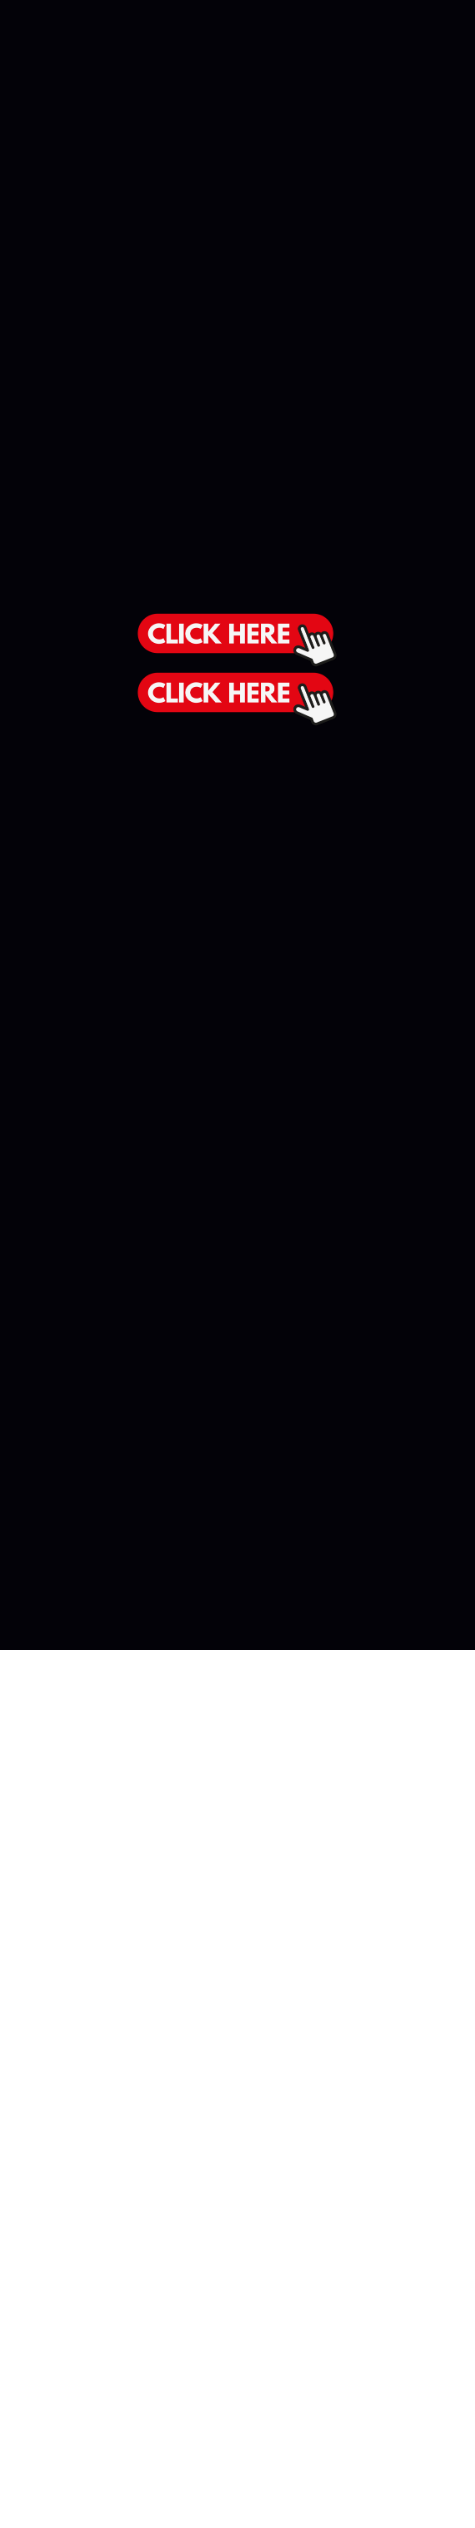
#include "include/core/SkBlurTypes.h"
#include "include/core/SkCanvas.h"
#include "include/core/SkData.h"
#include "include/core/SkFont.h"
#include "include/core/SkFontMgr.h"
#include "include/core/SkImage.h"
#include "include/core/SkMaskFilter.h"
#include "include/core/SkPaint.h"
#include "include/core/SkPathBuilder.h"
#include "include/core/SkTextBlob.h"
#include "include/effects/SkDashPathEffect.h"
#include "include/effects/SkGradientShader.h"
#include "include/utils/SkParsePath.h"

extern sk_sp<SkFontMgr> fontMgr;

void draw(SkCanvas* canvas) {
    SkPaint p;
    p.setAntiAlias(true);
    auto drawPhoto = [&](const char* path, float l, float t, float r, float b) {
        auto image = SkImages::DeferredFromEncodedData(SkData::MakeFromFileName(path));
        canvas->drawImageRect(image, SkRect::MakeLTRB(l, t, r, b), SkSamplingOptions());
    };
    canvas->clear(0xFFFFFFFF);
    drawPhoto("media/1.png", 0, 0, 475, 1650);
}
